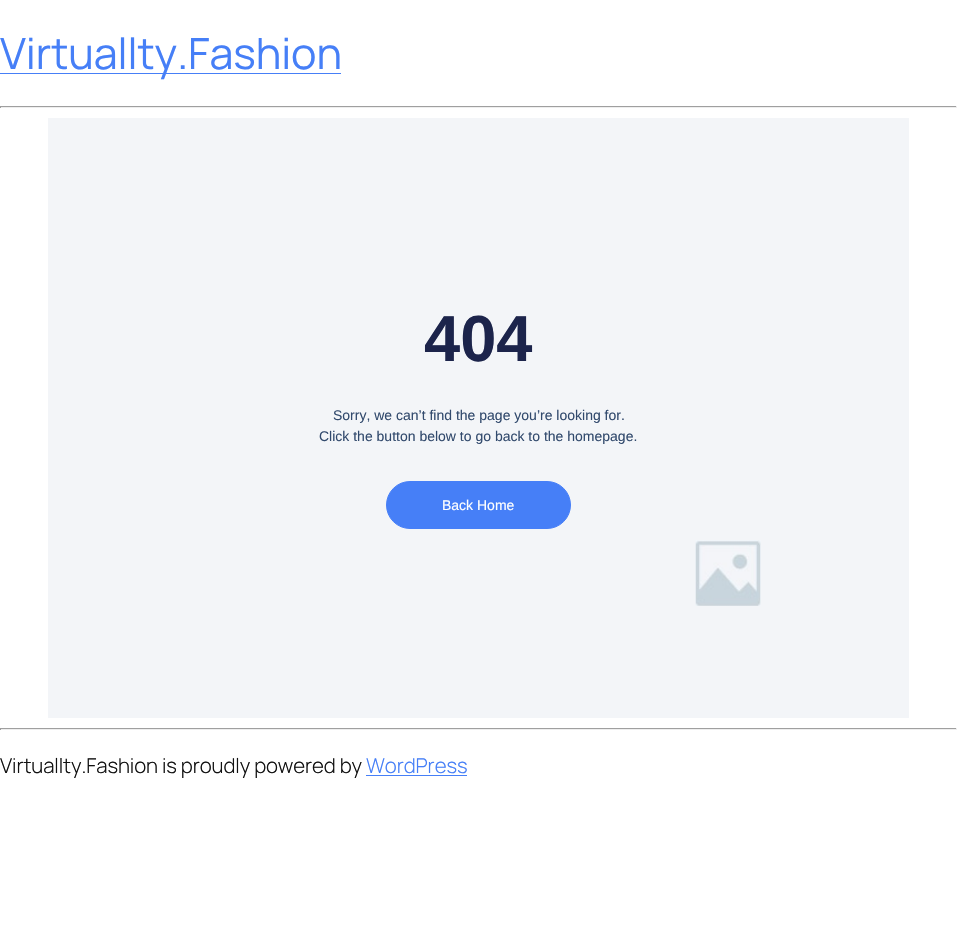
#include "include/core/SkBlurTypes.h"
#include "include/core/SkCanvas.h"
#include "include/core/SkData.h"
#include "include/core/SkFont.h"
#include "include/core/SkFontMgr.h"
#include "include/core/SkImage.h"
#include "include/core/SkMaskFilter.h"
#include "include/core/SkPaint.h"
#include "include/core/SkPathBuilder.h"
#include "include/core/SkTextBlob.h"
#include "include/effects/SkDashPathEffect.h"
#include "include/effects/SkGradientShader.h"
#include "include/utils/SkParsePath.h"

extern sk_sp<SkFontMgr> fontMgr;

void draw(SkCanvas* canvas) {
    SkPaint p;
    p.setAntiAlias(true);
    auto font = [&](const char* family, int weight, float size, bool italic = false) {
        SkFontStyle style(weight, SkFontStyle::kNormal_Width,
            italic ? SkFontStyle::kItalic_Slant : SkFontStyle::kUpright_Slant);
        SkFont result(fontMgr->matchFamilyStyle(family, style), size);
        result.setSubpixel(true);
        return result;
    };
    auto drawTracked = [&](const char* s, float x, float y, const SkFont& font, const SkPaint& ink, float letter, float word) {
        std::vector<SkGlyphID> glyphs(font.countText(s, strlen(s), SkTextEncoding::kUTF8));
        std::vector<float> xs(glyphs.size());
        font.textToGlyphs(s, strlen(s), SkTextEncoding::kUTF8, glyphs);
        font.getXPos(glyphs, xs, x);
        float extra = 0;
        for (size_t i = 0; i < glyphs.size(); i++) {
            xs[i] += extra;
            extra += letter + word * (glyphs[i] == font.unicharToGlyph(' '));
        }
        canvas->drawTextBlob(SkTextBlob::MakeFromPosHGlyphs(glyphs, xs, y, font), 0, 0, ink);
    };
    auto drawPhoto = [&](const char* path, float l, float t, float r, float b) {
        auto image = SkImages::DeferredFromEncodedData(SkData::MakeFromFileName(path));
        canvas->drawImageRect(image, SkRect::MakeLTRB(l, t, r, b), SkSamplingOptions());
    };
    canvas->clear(0xFFFFFFFF);
    p.setColor(0xFF467FF7);
    canvas->drawRect(SkRect::MakeLTRB(0, 73, 341, 74), p);
    auto font1 = font("Manrope", 400, 43);
    drawTracked("Virtuallty.Fashion", 0, 69, font1, p, -0.1f, 0);
    {
        const struct { float l, t, r, b; SkColor color; } items[] = {
            {0, 106, 957, 107, 0xFF9F9F9F},
            {956, 106, 957, 108, 0xFFEEEEEE},
            {0, 107, 957, 108, 0xFFEEEEEE},
            {0, 106, 1, 108, 0xFF9F9F9F},
            {48, 118, 909, 718, 0xFFF3F5F8},
        };
        for (auto [l, t, r, b, color] : items) {
            p.setColor(color);
            canvas->drawRect(SkRect::MakeLTRB(l, t, r, b), p);
        }
    }
    drawPhoto("media/1.png", 695, 540, 761, 606);
    auto font2 = font("Liberation Sans", 700, 65);
    p.setColor(0xFF1C244B);
    canvas->drawString("404", 424, 361, font2, p);
    auto font3 = font("Liberation Sans", 400, 14);
    p.setColor(0xFF324A6D);
    canvas->drawString("Sorry, we can’t find the page you’re looking for.", 333, 420, font3, p);
    canvas->drawString("Click the button below to go back to the homepage.", 319, 441, font3, p);
    p.setColor(0xFF467FF7);
    canvas->drawRoundRect(SkRect::MakeLTRB(386.5f, 481.5f, 570.5f, 528.5f), 23.5f, 23.5f, p);
    p.setStyle(SkPaint::kStroke_Style);
    p.setStrokeWidth(1);
    canvas->drawRoundRect(SkRect::MakeLTRB(386.5f, 481.5f, 570.5f, 528.5f), 23.5f, 23.5f, p);
    p.setStyle(SkPaint::kFill_Style);
    p.setColor(0xFFFFFFFF);
    canvas->drawString("Back Home", 442, 510, font3, p);
    {
        const struct { float l, t, r, b; SkColor color; } items[] = {
            {0, 728, 957, 729, 0xFF9F9F9F},
            {956, 728, 957, 730, 0xFFEEEEEE},
            {0, 729, 957, 730, 0xFFEEEEEE},
            {0, 728, 1, 730, 0xFF9F9F9F},
        };
        for (auto [l, t, r, b, color] : items) {
            p.setColor(color);
            canvas->drawRect(SkRect::MakeLTRB(l, t, r, b), p);
        }
    }
    auto font4 = font("Manrope", 300, 20.5f);
    p.setColor(0xFF111111);
    drawTracked("Virtuallty.Fashion is proudly powered by", 0, 773, font4, p, -0.1f, 0);
    p.setColor(0xFF467FF7);
    drawTracked("WordPress", 366, 773, font4, p, -0.1f, 0);
    canvas->drawRect(SkRect::MakeLTRB(366, 775, 467, 776), p);
}
